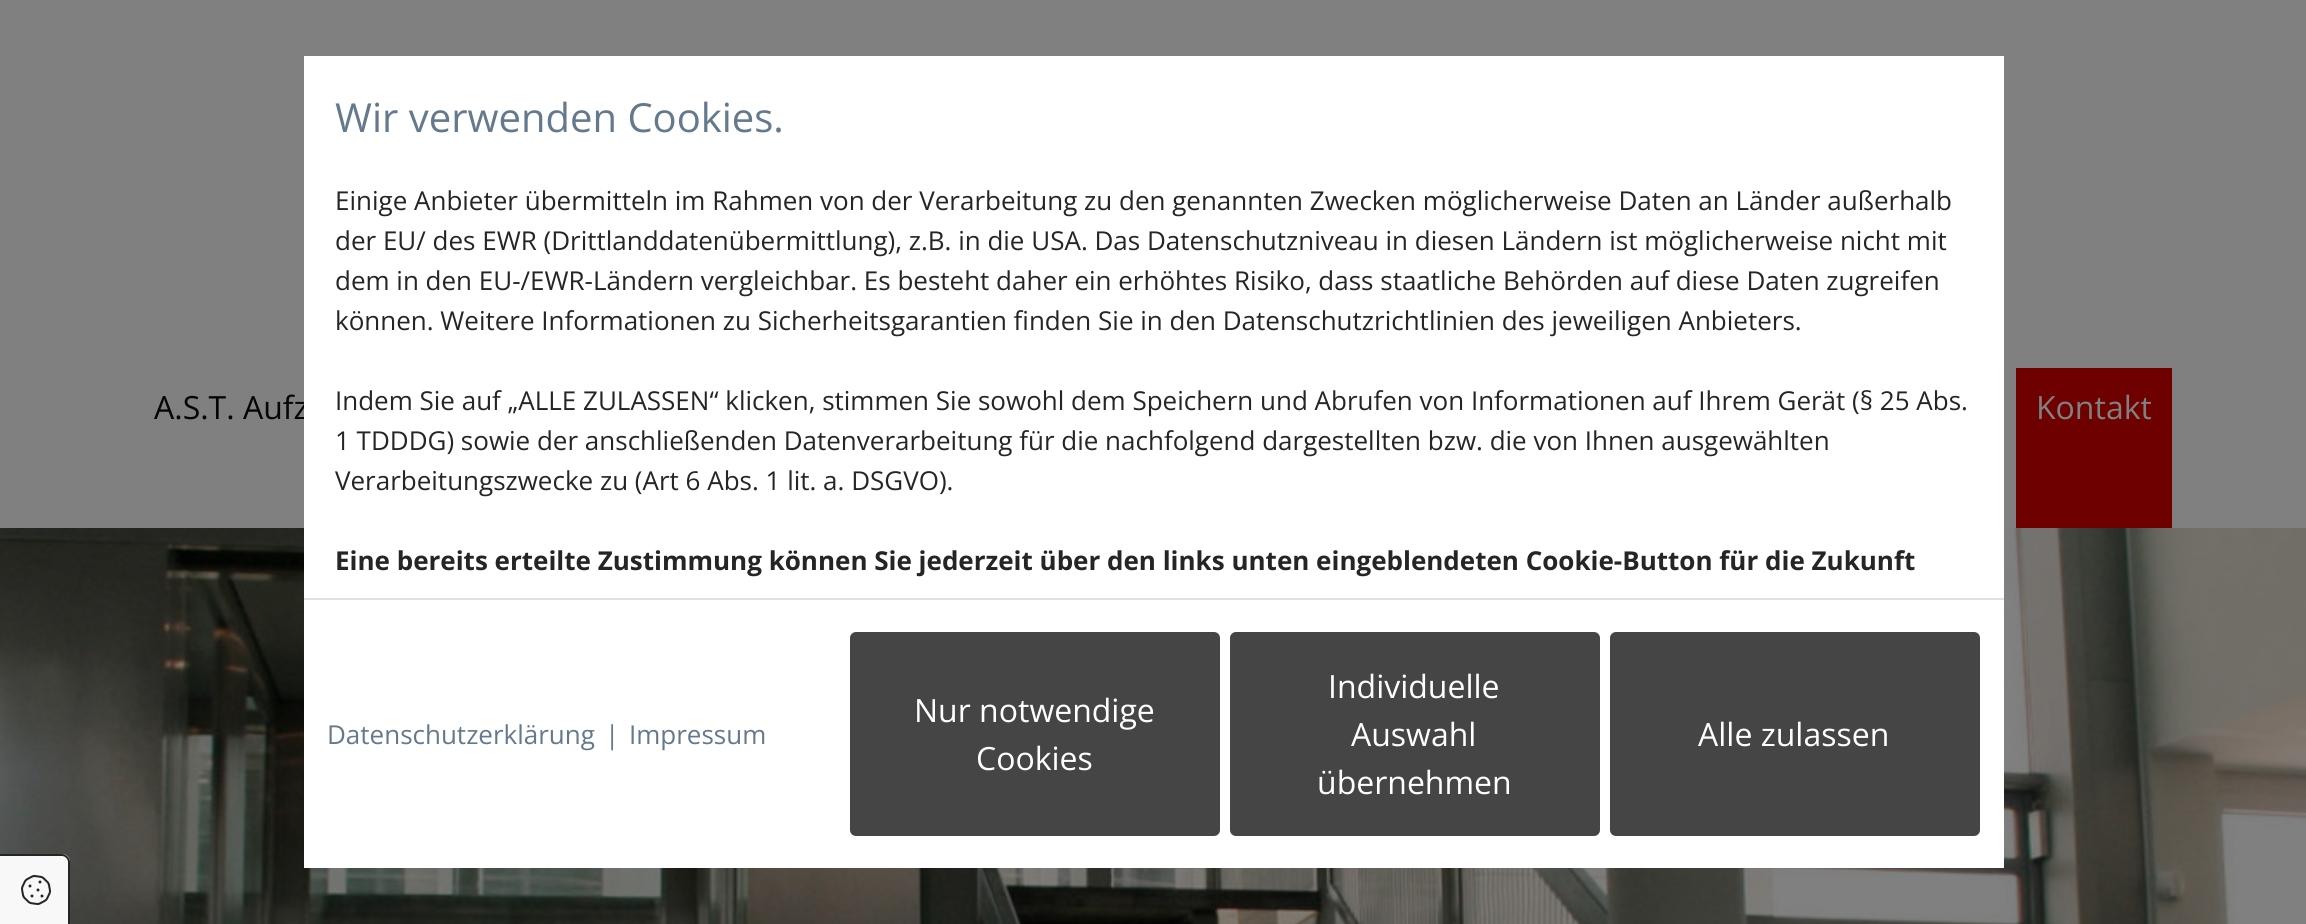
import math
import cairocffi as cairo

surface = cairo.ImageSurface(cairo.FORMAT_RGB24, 2306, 924)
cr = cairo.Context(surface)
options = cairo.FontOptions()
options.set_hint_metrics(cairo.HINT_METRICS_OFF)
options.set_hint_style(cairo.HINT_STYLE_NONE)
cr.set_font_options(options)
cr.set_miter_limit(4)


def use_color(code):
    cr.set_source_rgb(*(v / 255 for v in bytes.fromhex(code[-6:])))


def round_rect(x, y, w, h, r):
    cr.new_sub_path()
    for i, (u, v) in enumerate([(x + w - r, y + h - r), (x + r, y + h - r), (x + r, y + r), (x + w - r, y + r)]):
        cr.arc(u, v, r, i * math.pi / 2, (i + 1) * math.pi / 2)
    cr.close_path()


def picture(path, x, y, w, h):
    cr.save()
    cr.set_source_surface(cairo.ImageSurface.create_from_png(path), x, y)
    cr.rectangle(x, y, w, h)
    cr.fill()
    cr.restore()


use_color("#808080")
cr.paint()
cr.select_font_face("Open Sans")
cr.set_font_size(32)
use_color("#050507")
cr.move_to(154, 419)
cr.show_text("A.S.T. Aufz")
picture("img1.png", 0, 528, 2306, 396)
use_color("#ffffff")
cr.rectangle(304, 56, 1700, 812)
cr.fill()
cr.set_font_size(40)
use_color("#64798c")
cr.move_to(335, 132)
cr.show_text("Wir verwenden Cookies.")
cr.set_font_size(26)
use_color("#252525")
cr.move_to(335, 210)
cr.show_text("Einige Anbieter übermitteln im Rahmen von der Verarbeitung zu den genannten Zwecken möglicherweise Daten an Länder außerhalb")
cr.move_to(335, 250)
cr.show_text("der EU/ des EWR (Drittlanddatenübermittlung), z.B. in die USA. Das Datenschutzniveau in diesen Ländern ist möglicherweise nicht mit")
cr.move_to(335, 290)
cr.show_text("dem in den EU-/EWR-Ländern vergleichbar. Es besteht daher ein erhöhtes Risiko, dass staatliche Behörden auf diese Daten zugreifen")
cr.move_to(335, 330)
cr.show_text("können. Weitere Informationen zu Sicherheitsgarantien finden Sie in den Datenschutzrichtlinien des jeweiligen Anbieters.")
cr.move_to(335, 410)
cr.show_text("Indem Sie auf „ALLE ZULASSEN“ klicken, stimmen Sie sowohl dem Speichern und Abrufen von Informationen auf Ihrem Gerät (§ 25 Abs.")
cr.move_to(335, 450)
cr.show_text("1 TDDDG) sowie der anschließenden Datenverarbeitung für die nachfolgend dargestellten bzw. die von Ihnen ausgewählten")
cr.move_to(335, 490)
cr.show_text("Verarbeitungszwecke zu (Art 6 Abs. 1 lit. a. DSGVO).")
cr.select_font_face("Open Sans", cairo.FONT_SLANT_NORMAL, cairo.FONT_WEIGHT_BOLD)
cr.move_to(335, 570)
cr.show_text("Eine bereits erteilte Zustimmung können Sie jederzeit über den links unten eingeblendeten Cookie-Button für die Zukunft")
use_color("#dee2e6")
cr.rectangle(304, 598, 1700, 2)
cr.fill()
cr.select_font_face("Open Sans")
use_color("#64798c")
cr.move_to(327, 744)
cr.show_text("Datenschutzerklärung")
cr.move_to(605, 744)
cr.show_text("|")
cr.move_to(629, 744)
cr.show_text("Impressum")
use_color("#454545")
round_rect(850, 632, 370, 204, 6)
cr.fill()
cr.set_font_size(32)
use_color("#ffffff")
cr.move_to(914, 722)
cr.show_text("Nur notwendige")
cr.move_to(976, 770)
cr.show_text("Cookies")
use_color("#454545")
round_rect(1230, 632, 370, 204, 6)
cr.fill()
use_color("#ffffff")
cr.move_to(1328, 698)
cr.show_text("Individuelle")
cr.move_to(1351, 746)
cr.show_text("Auswahl")
cr.move_to(1317, 794)
cr.show_text("übernehmen")
use_color("#454545")
round_rect(1610, 632, 370, 204, 6)
cr.fill()
use_color("#ffffff")
cr.move_to(1698, 746)
cr.show_text("Alle zulassen")
use_color("#6e0000")
cr.rectangle(2016, 368, 156, 160)
cr.fill()
use_color("#808080")
cr.move_to(2036, 419)
cr.show_text("Kontakt")
use_color("#f8f8f8")
cr.new_path()
cr.move_to(0, 854)
cr.line_to(62, 854)
cr.curve_to(66.5, 854, 70, 857.5, 70, 862)
cr.line_to(70, 924)
cr.line_to(0, 924)
cr.close_path()
cr.fill()
use_color("#252525")
cr.set_fill_rule(cairo.FILL_RULE_EVEN_ODD)
cr.new_path()
cr.move_to(0, 854)
cr.line_to(62, 854)
cr.curve_to(66, 854, 70, 858, 70, 862)
cr.line_to(70, 924)
cr.line_to(0, 924)
cr.close_path()
cr.move_to(0, 856)
cr.line_to(62, 856)
cr.curve_to(65, 856, 68, 859, 68, 862)
cr.line_to(68, 924)
cr.line_to(0, 924)
cr.close_path()
cr.fill()
picture("img2.png", 21, 875, 30, 30)
surface.write_to_png("result.png")
